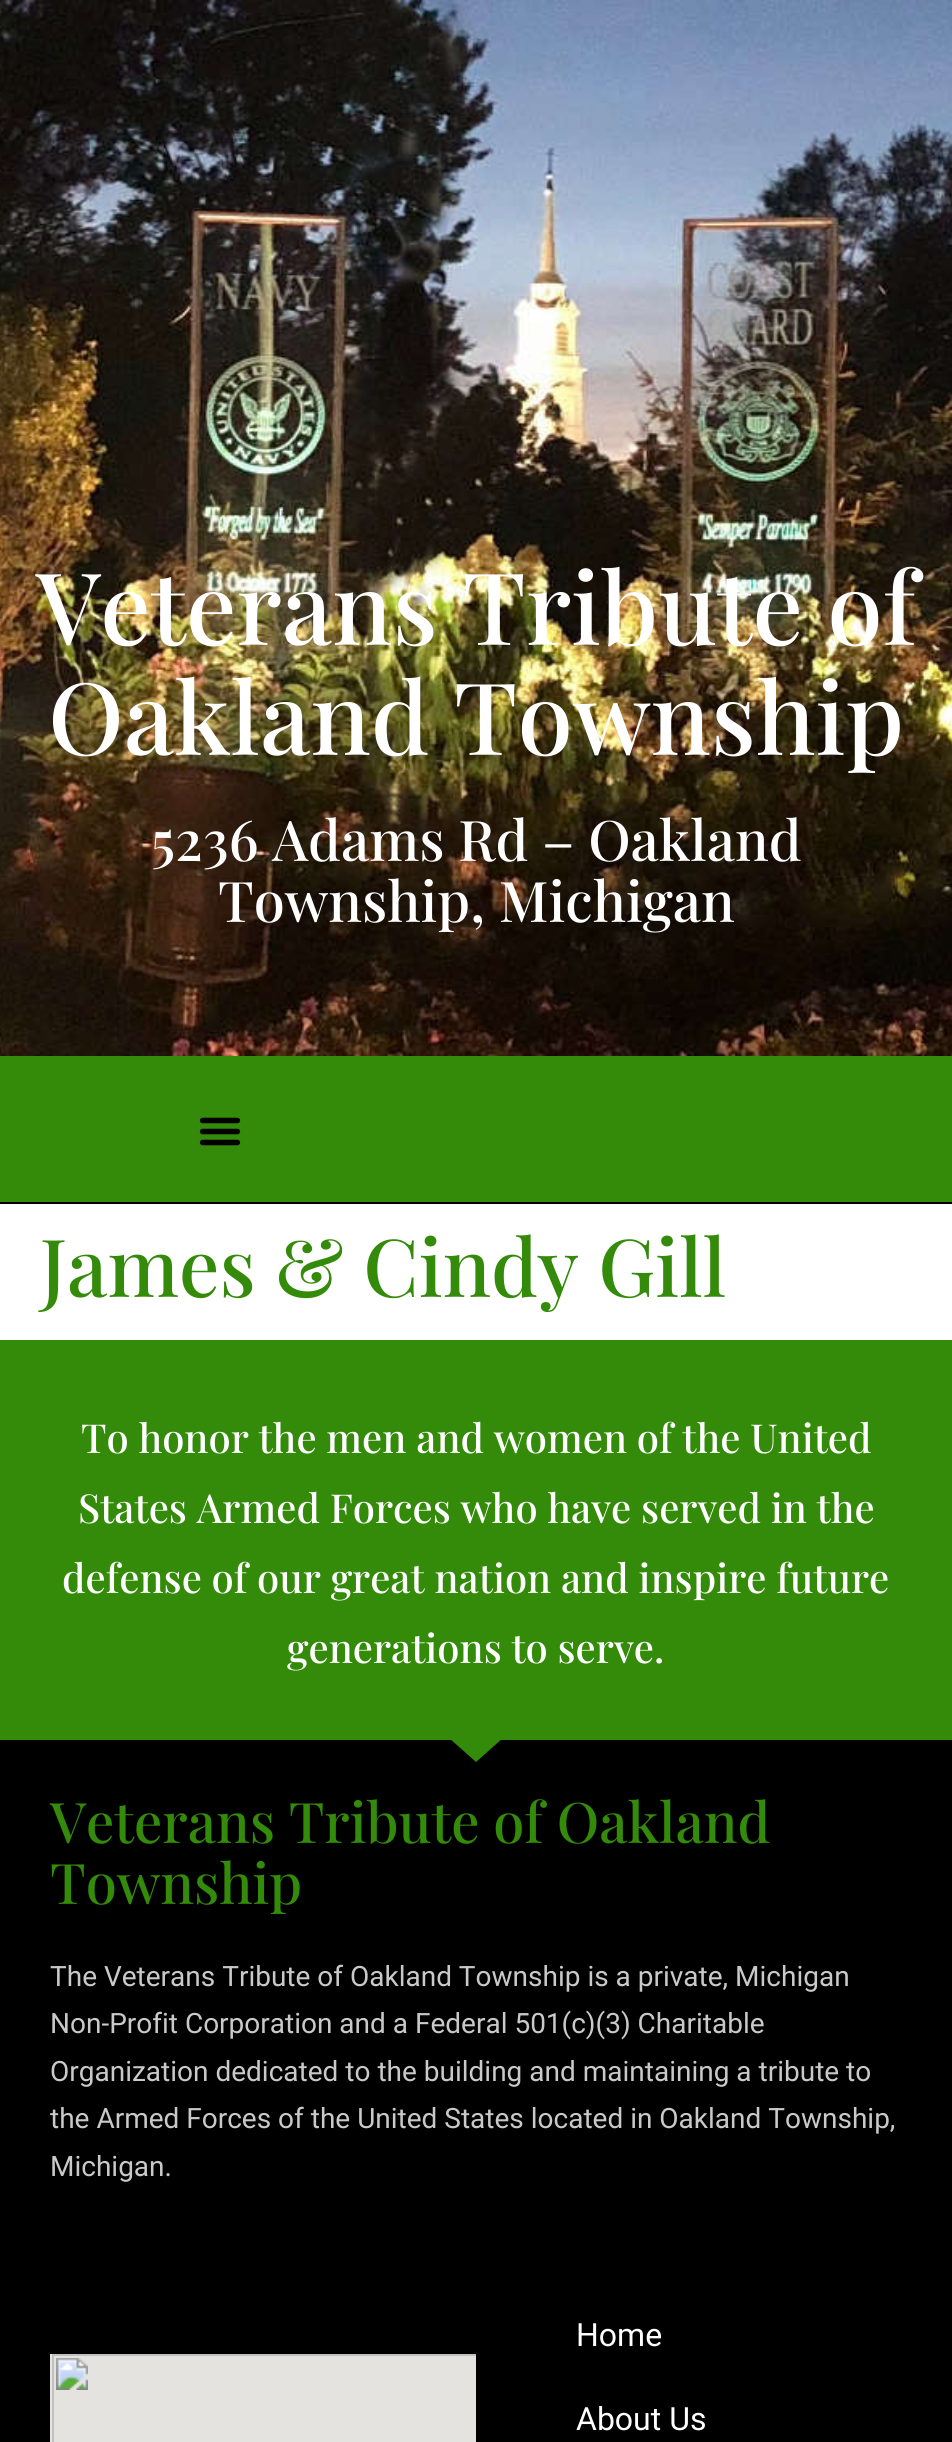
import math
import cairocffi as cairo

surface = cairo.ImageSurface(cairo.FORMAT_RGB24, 952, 2442)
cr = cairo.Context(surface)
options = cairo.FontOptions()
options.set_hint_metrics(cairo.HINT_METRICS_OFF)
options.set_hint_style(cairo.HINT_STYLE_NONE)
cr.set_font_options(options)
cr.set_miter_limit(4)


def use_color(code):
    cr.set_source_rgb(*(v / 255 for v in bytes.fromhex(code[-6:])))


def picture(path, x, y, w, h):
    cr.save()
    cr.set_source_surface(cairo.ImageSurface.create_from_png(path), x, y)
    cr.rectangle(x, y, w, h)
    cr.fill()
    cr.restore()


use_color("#ffffff")
cr.paint()
picture("img1.png", 0, 0, 952, 1056)
cr.select_font_face("Playfair Display Medium")
cr.set_font_size(100)
use_color("#ffffff")
cr.move_to(36, 645)
cr.show_text("Veterans Tribute of")
cr.move_to(48, 755)
cr.show_text("Oakland Township")
cr.set_font_size(56)
cr.move_to(151, 861)
cr.show_text("5236 Adams Rd – Oakland")
cr.move_to(218, 922)
cr.show_text("Township, Michigan")
use_color("#348a09")
cr.rectangle(0, 1056, 952, 146)
cr.fill()
use_color("#000000")
cr.rectangle(0, 1202, 952, 2)
cr.fill()
picture("img2.png", 199, 1117, 42, 29)
cr.set_font_size(80)
use_color("#348a09")
cr.move_to(40, 1297)
cr.show_text("James & Cindy Gill")
cr.rectangle(0, 1340, 952, 400)
cr.fill()
cr.set_font_size(40)
use_color("#ffffff")
cr.move_to(81, 1453)
cr.show_text("To honor the men and women of the United")
cr.move_to(78, 1523)
cr.show_text("States Armed Forces who have served in the")
cr.move_to(62, 1593)
cr.show_text("defense of our great nation and inspire future")
cr.move_to(287, 1663)
cr.show_text("generations to serve.")
use_color("#000000")
cr.rectangle(0, 1740, 952, 702)
cr.fill()
use_color("#348a09")
cr.new_path()
cr.move_to(476, 1762)
cr.line_to(449, 1738)
cr.line_to(503, 1738)
cr.close_path()
cr.fill()
cr.set_font_size(56)
cr.move_to(50, 1843)
cr.show_text("Veterans Tribute of Oakland")
cr.move_to(50, 1904)
cr.show_text("Township")
cr.select_font_face("Roboto")
cr.set_font_size(28)
use_color("#c9c9c9")
cr.move_to(50, 1986)
cr.show_text("The Veterans Tribute of Oakland Township is a private, Michigan")
cr.move_to(50, 2033)
cr.show_text("Non-Profit Corporation and a Federal 501(c)(3) Charitable")
cr.move_to(50, 2081)
cr.show_text("Organization dedicated to the building and maintaining a tribute to")
cr.move_to(50, 2128)
cr.show_text("the Armed Forces of the United States located in Oakland Township,")
cr.move_to(50, 2176)
cr.show_text("Michigan.")
picture("img3.png", 50, 2354, 426, 88)
cr.set_font_size(32)
use_color("#ffffff")
cr.move_to(576, 2346)
cr.show_text("Home")
cr.move_to(576, 2430)
cr.show_text("About Us")
surface.write_to_png("result.png")
